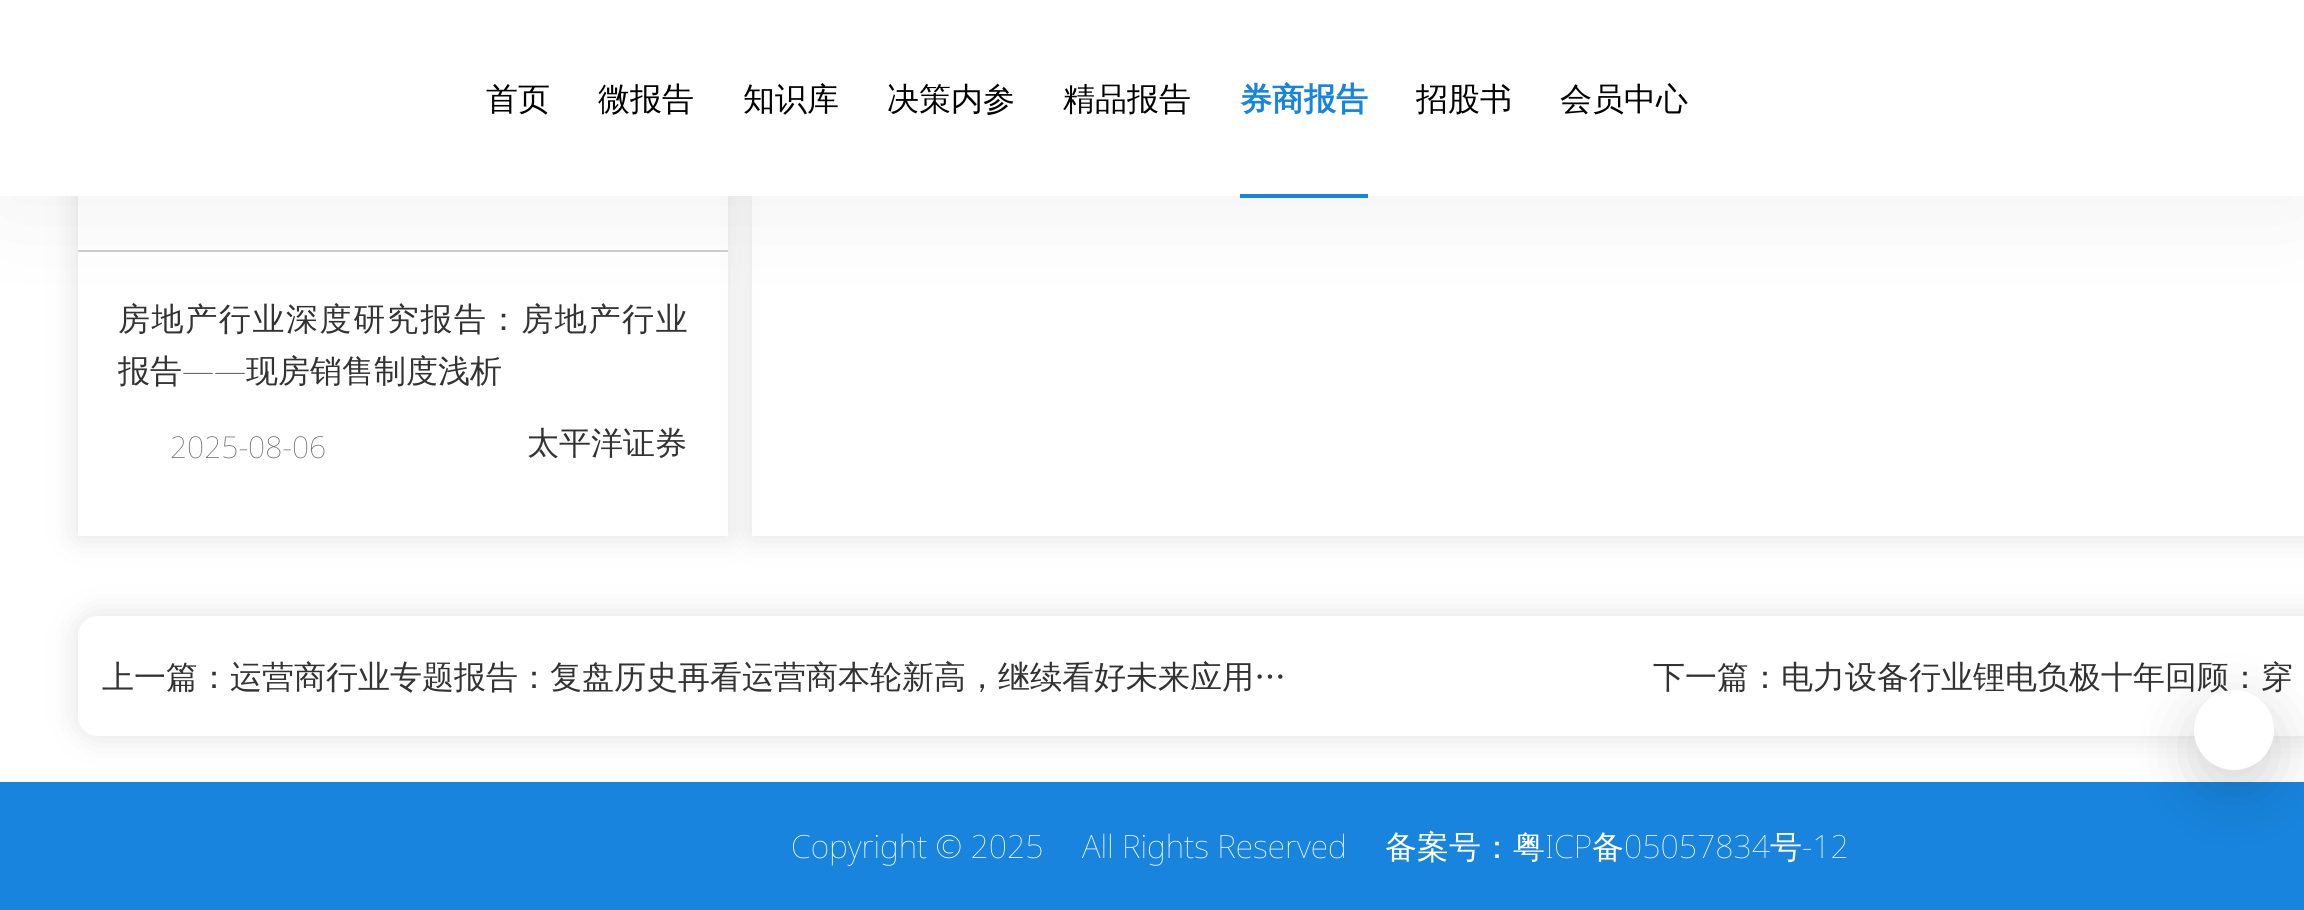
import math
import cairocffi as cairo

surface = cairo.ImageSurface(cairo.FORMAT_RGB24, 2304, 910)
cr = cairo.Context(surface)
options = cairo.FontOptions()
options.set_hint_metrics(cairo.HINT_METRICS_OFF)
options.set_hint_style(cairo.HINT_STYLE_NONE)
cr.set_font_options(options)
cr.set_miter_limit(4)


def use_color(code):
    cr.set_source_rgb(*(v / 255 for v in bytes.fromhex(code[-6:])))


def spaced_text(x, y, s, letter, word):
    cr.move_to(x, y)
    for ch in s:
        cr.show_text(ch)
        cr.rel_move_to(letter + word * (ch == ' '), 0)


def round_rect(x, y, w, h, r):
    cr.new_sub_path()
    for i, (u, v) in enumerate([(x + w - r, y + h - r), (x + r, y + h - r), (x + r, y + r), (x + w - r, y + r)]):
        cr.arc(u, v, r, i * math.pi / 2, (i + 1) * math.pi / 2)
    cr.close_path()


def shadow(x, y, w, h, r, blur, alpha):
    cr.push_group_with_content(cairo.CONTENT_ALPHA)
    cr.set_operator(cairo.OPERATOR_SOURCE)
    for i in range(15, -16, -2):
        e = blur * i / 6
        if min(w, h) + 2 * e > 0:
            cr.set_source_rgba(0, 0, 0, alpha * math.erfc((i - 1) / 8.5) / 2)
            round_rect(x - e, y - e, w + 2 * e, h + 2 * e, max(0, min(r + e + blur * .6, min(w, h) / 2 + e)))
            cr.fill()
    cr.mask(cr.pop_group())


use_color("#ffffff")
cr.paint()
cr.save()
cr.set_fill_rule(cairo.FILL_RULE_EVEN_ODD)
cr.new_path()
cr.move_to(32, 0)
cr.line_to(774, 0)
cr.line_to(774, 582)
cr.line_to(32, 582)
cr.close_path()
cr.move_to(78, -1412)
cr.line_to(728, -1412)
cr.line_to(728, 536)
cr.line_to(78, 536)
cr.close_path()
cr.clip()
use_color("#e1e1e1")
shadow(78, -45, 650, 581, 0, 15, 1)
cr.restore()
use_color("#cfcfcf")
cr.rectangle(78, 250, 650, 2)
cr.fill()
use_color("#000000")
shadow(0, 0, 2304, 196, 0, 60, 0.07)
cr.save()
cr.set_fill_rule(cairo.FILL_RULE_EVEN_ODD)
cr.new_path()
cr.move_to(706, 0)
cr.line_to(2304, 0)
cr.line_to(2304, 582)
cr.line_to(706, 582)
cr.close_path()
cr.move_to(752, -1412)
cr.line_to(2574, -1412)
cr.line_to(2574, 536)
cr.line_to(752, 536)
cr.close_path()
cr.clip()
use_color("#e1e1e1")
shadow(752, -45, 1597, 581, 0, 15, 1)
cr.restore()
use_color("#ffffff")
cr.rectangle(0, 0, 2304, 196)
cr.fill()
cr.select_font_face("WenQuanYi Zen Hei Medium")
cr.set_font_size(32)
use_color("#000000")
cr.move_to(486, 110)
cr.show_text("首页")
cr.move_to(598, 110)
cr.show_text("微报告")
cr.move_to(743, 110)
cr.show_text("知识库")
cr.move_to(887, 110)
cr.show_text("决策内参")
cr.move_to(1063, 110)
cr.show_text("精品报告")
cr.select_font_face("WenQuanYi Zen Hei", cairo.FONT_SLANT_NORMAL, cairo.FONT_WEIGHT_BOLD)
use_color("#1884dd")
cr.move_to(1240, 110)
cr.show_text("券商报告")
cr.rectangle(1240, 194, 128, 4)
cr.fill()
cr.select_font_face("WenQuanYi Zen Hei Medium")
use_color("#000000")
cr.move_to(1416, 110)
cr.show_text("招股书")
cr.move_to(1560, 110)
cr.show_text("会员中心")
use_color("#333333")
spaced_text(118, 330, "房地产行业深度研究报告：房地产行业", 1.6, 0)
cr.move_to(118, 382)
cr.show_text("报告")
cr.select_font_face("Noto Sans Thin")
cr.move_to(182, 382)
cr.show_text("——")
cr.select_font_face("WenQuanYi Zen Hei Medium")
cr.move_to(246, 382)
cr.show_text("现房销售制度浅析")
cr.select_font_face("Noto Sans Thin")
cr.set_font_size(30)
use_color("#666666")
cr.move_to(170, 458)
cr.show_text("2025-08-06")
cr.select_font_face("WenQuanYi Zen Hei Medium")
cr.set_font_size(32)
use_color("#333333")
cr.move_to(527, 454)
cr.show_text("太平洋证券")
use_color("#e1e1e1")
shadow(78, 616, 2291, 120, 20, 15, 1)
use_color("#ffffff")
cr.new_path()
cr.move_to(98, 616)
cr.line_to(2304, 616)
cr.line_to(2304, 736)
cr.line_to(98, 736)
cr.curve_to(87, 736, 78, 727, 78, 716)
cr.line_to(78, 636)
cr.curve_to(78, 625, 87, 616, 98, 616)
cr.close_path()
cr.fill()
use_color("#333333")
cr.move_to(102, 688)
cr.show_text("上一篇：运营商行业专题报告：复盘历史再看运营商本轮新高，继续看好未来应用…")
cr.move_to(1653, 688)
cr.show_text("下一篇：电力设备行业锂电负极十年回顾：穿")
use_color("#1884dd")
cr.rectangle(0, 782, 2304, 128)
cr.fill()
cr.select_font_face("Noto Sans Thin")
use_color("#ffffff")
cr.move_to(791, 858)
cr.show_text("Copyright © 2025")
cr.move_to(1082, 858)
cr.show_text("All Rights Reserved")
cr.select_font_face("WenQuanYi Zen Hei Medium")
cr.move_to(1385, 858)
cr.show_text("备案号：粤")
cr.select_font_face("Noto Sans Thin")
cr.move_to(1545, 858)
cr.show_text("ICP")
cr.select_font_face("WenQuanYi Zen Hei Medium")
cr.move_to(1592, 858)
cr.show_text("备")
cr.select_font_face("Noto Sans Thin")
cr.move_to(1624, 858)
cr.show_text("05057834")
cr.select_font_face("WenQuanYi Zen Hei Medium")
cr.move_to(1770, 858)
cr.show_text("号")
cr.select_font_face("Noto Sans Thin")
cr.move_to(1802, 858)
cr.show_text("-12")
use_color("#000000")
shadow(2192, 708, 84, 84, 42, 30, 0.15)
use_color("#ffffff")
cr.arc(2234, 730, 40, 0, 2 * math.pi)
cr.fill()
surface.write_to_png("result.png")
